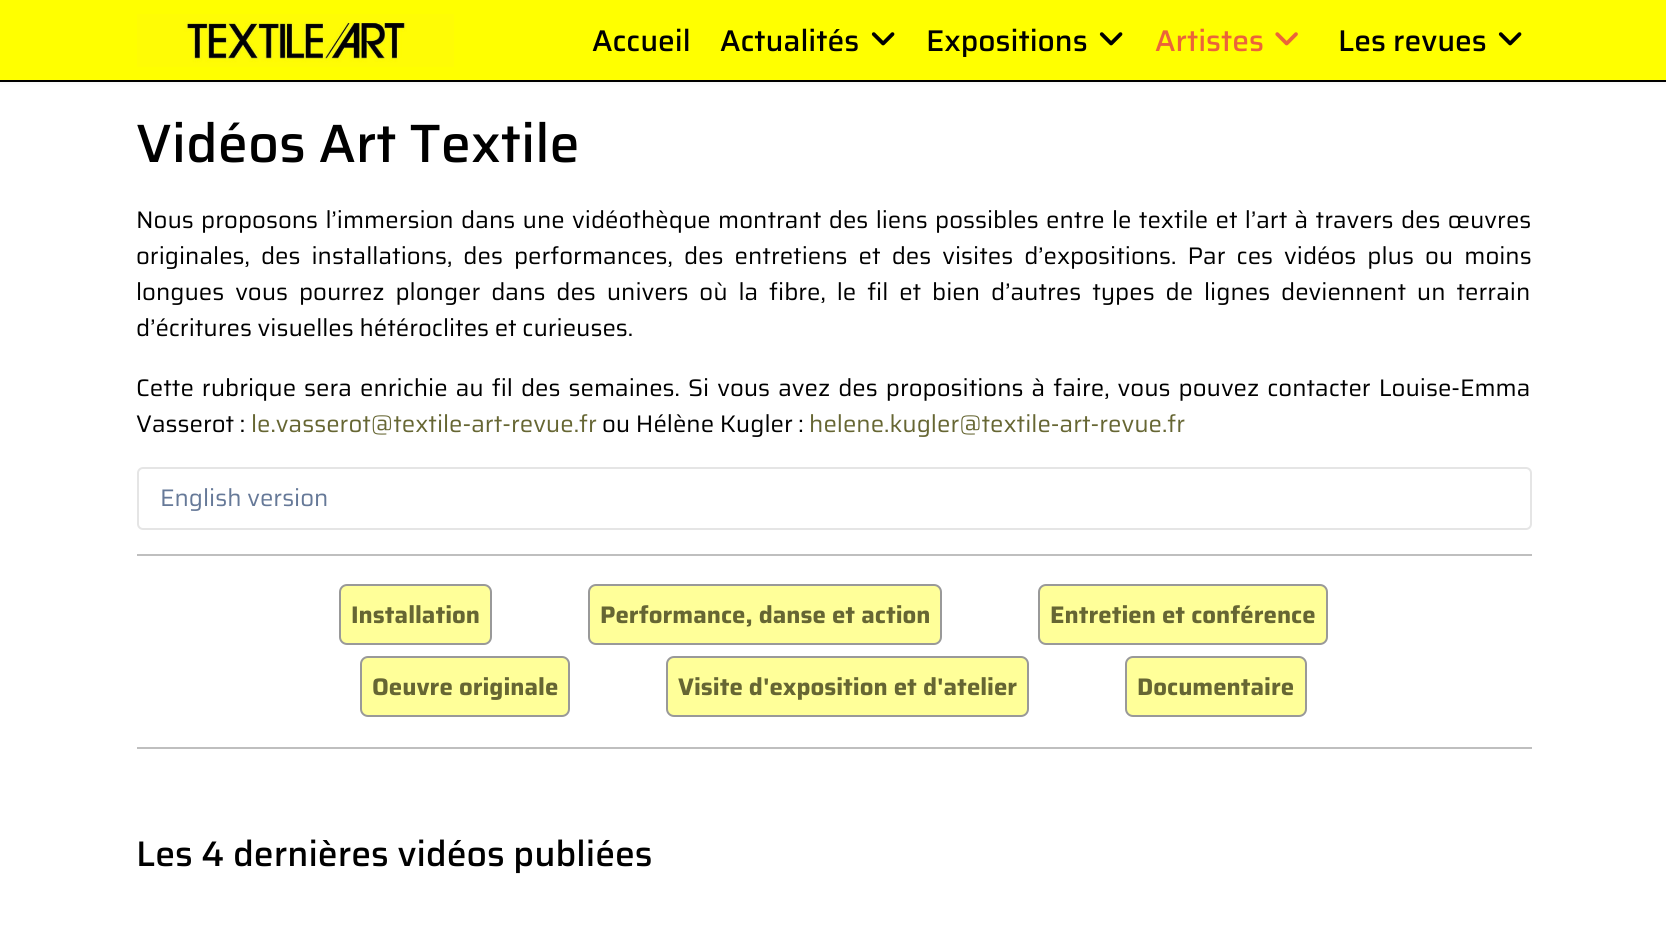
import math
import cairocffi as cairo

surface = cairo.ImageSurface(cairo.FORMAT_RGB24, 1666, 929)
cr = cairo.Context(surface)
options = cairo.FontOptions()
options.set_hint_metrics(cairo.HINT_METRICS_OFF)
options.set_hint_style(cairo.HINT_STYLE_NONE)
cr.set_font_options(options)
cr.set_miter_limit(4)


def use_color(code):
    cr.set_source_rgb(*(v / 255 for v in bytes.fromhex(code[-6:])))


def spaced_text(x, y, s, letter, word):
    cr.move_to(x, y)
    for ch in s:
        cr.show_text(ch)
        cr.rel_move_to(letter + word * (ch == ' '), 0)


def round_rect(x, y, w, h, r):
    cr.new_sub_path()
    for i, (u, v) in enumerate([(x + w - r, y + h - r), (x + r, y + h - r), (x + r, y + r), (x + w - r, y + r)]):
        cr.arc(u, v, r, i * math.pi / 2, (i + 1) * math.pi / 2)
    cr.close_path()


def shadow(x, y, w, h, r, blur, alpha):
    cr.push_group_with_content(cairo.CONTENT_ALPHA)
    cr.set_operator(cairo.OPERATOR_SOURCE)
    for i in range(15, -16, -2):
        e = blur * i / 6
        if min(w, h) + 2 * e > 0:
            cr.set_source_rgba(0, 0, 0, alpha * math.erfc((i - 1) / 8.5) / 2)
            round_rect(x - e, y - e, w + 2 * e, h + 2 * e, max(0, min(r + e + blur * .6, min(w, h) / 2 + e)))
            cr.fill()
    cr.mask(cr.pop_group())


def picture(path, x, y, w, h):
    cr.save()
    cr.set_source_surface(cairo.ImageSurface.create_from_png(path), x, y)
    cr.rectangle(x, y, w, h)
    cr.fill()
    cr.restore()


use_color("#ffffff")
cr.paint()
use_color("#000000")
shadow(0, 0, 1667, 81, 0, 3, 0.1)
use_color("#ffff00")
cr.rectangle(0, 0, 1666, 80)
cr.fill()
use_color("#000000")
cr.rectangle(0, 80, 1666, 2)
cr.fill()
picture("img1.png", 137, 14, 317, 53)
cr.select_font_face("Saira Medium")
cr.set_font_size(30)
cr.move_to(592, 51)
cr.show_text("Accueil")
cr.move_to(720, 51)
cr.show_text("Actualités")
picture("img2.png", 871, 32, 24, 14)
cr.move_to(926, 51)
cr.show_text("Expositions")
picture("img2.png", 1099, 32, 24, 14)
use_color("#eb643a")
cr.move_to(1155, 51)
cr.show_text("Artistes")
picture("img3.png", 1275, 32, 23, 14)
use_color("#000000")
cr.move_to(1338, 51)
cr.show_text("Les revues")
picture("img2.png", 1498, 32, 24, 14)
cr.set_font_size(54)
cr.move_to(136, 162)
cr.show_text("Vidéos Art Textile")
cr.select_font_face("Saira")
cr.set_font_size(24)
spaced_text(136, 228, "Nous proposons l’immersion dans une vidéothèque montrant des liens possibles entre le textile et l’art à travers des œuvres", 0, 1.7)
spaced_text(136, 264, "originales, des installations, des performances, des entretiens et des visites d’expositions. Par ces vidéos plus ou moins", 0, 5.4)
spaced_text(136, 300, "longues vous pourrez plonger dans des univers où la fibre, le fil et bien d’autres types de lignes deviennent un terrain", 0, 5.25)
cr.move_to(136, 336)
cr.show_text("d’écritures visuelles hétéroclites et curieuses.")
spaced_text(136, 396, "Cette rubrique sera enrichie au fil des semaines. Si vous avez des propositions à faire, vous pouvez contacter Louise-Emma", 0, 2.4)
cr.move_to(136, 432)
cr.show_text("Vasserot :")
use_color("#666633")
cr.move_to(251, 432)
cr.show_text("le.vasserot@textile-art-revue.fr")
use_color("#000000")
cr.move_to(602, 432)
cr.show_text("ou Hélène Kugler :")
use_color("#666633")
cr.move_to(809, 432)
cr.show_text("helene.kugler@textile-art-revue.fr")
round_rect(138, 468, 1393, 61, 5)
use_color("#e5e5e5")
cr.stroke()
use_color("#667998")
cr.move_to(160, 506)
cr.show_text("English version")
use_color("#bfbfbf")
cr.rectangle(137, 554, 1395, 2)
cr.fill()
use_color("#ffff99")
round_rect(340, 585, 151, 59, 7)
cr.fill_preserve()
use_color("#999999")
cr.stroke()
cr.select_font_face("Saira", cairo.FONT_SLANT_NORMAL, cairo.FONT_WEIGHT_BOLD)
use_color("#666633")
cr.move_to(351, 623)
cr.show_text("Installation")
use_color("#ffff99")
round_rect(589, 585, 352, 59, 7)
cr.fill_preserve()
use_color("#999999")
cr.stroke()
use_color("#666633")
cr.move_to(600, 623)
cr.show_text("Performance, danse et action")
use_color("#ffff99")
round_rect(1039, 585, 288, 59, 7)
cr.fill_preserve()
use_color("#999999")
cr.stroke()
use_color("#666633")
cr.move_to(1050, 623)
cr.show_text("Entretien et conférence")
use_color("#ffff99")
round_rect(361, 657, 208, 59, 7)
cr.fill_preserve()
use_color("#999999")
cr.stroke()
use_color("#666633")
cr.move_to(372, 695)
cr.show_text("Oeuvre originale")
use_color("#ffff99")
round_rect(667, 657, 361, 59, 7)
cr.fill_preserve()
use_color("#999999")
cr.stroke()
use_color("#666633")
cr.move_to(678, 695)
cr.show_text("Visite d'exposition et d'atelier")
use_color("#ffff99")
round_rect(1126, 657, 180, 59, 7)
cr.fill_preserve()
use_color("#999999")
cr.stroke()
use_color("#666633")
cr.move_to(1137, 695)
cr.show_text("Documentaire")
use_color("#bfbfbf")
cr.rectangle(137, 747, 1395, 2)
cr.fill()
cr.select_font_face("Saira Medium")
cr.set_font_size(35.6)
use_color("#000000")
cr.move_to(136, 866)
cr.show_text("Les 4 dernières vidéos publiées")
surface.write_to_png("result.png")
